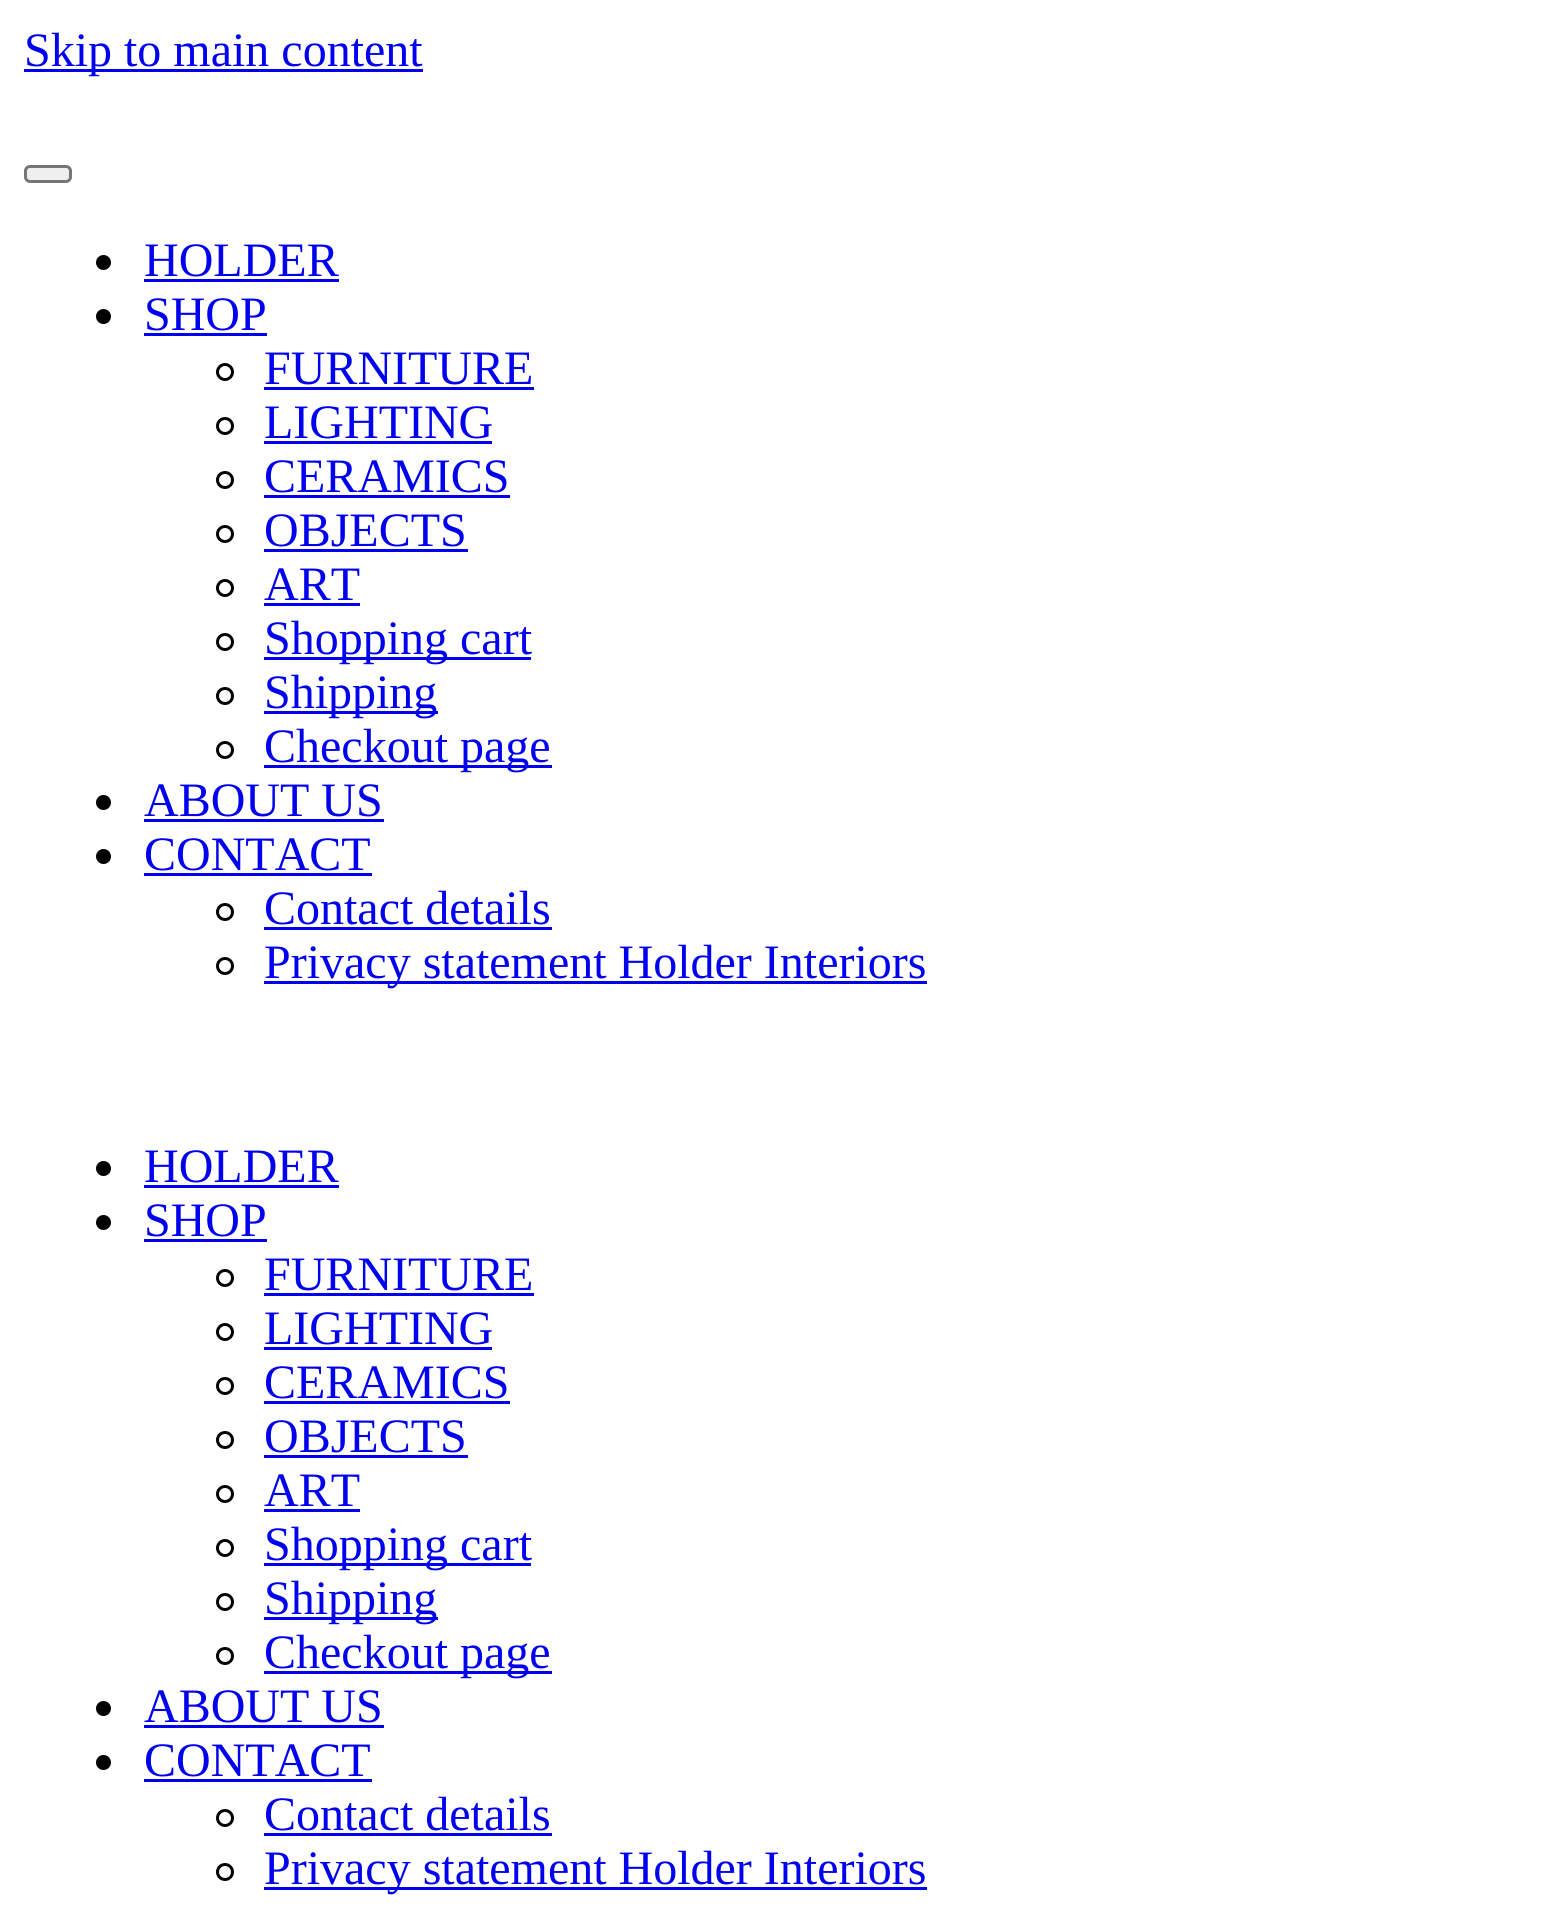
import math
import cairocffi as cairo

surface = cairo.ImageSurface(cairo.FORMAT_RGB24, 1541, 1917)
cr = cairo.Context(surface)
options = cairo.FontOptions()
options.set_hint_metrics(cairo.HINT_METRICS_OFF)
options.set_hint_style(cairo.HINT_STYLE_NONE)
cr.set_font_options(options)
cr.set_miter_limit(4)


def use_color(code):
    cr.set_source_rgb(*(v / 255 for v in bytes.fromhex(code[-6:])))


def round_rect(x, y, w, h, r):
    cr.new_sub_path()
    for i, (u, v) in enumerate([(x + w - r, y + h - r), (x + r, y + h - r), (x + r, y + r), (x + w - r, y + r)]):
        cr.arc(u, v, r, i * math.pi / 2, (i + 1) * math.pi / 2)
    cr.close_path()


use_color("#ffffff")
cr.paint()
use_color("#0000ee")
cr.rectangle(24, 69, 399, 3)
cr.fill()
cr.select_font_face("Liberation Serif")
cr.set_font_size(48)
cr.move_to(24, 66)
cr.show_text("Skip to main content")
use_color("#efefef")
round_rect(25.5, 166.5, 45, 15, 4.5)
cr.fill_preserve()
use_color("#767676")
cr.set_line_width(3)
cr.stroke()
use_color("#000000")
cr.arc(103.5, 262.5, 7.5, 0, 2 * math.pi)
cr.fill()
use_color("#0000ee")
cr.move_to(144, 276)
cr.show_text("HOLDER")
cr.rectangle(144, 279, 195, 3)
cr.fill()
use_color("#000000")
cr.arc(103.5, 316.5, 7.5, 0, 2 * math.pi)
cr.fill()
use_color("#0000ee")
cr.move_to(144, 330)
cr.show_text("SHOP")
cr.rectangle(144, 333, 123, 3)
cr.fill()
cr.arc(225, 372, 7.5, 0, 2 * math.pi)
use_color("#000000")
cr.stroke()
use_color("#0000ee")
cr.move_to(264, 384)
cr.show_text("FURNITURE")
cr.rectangle(264, 387, 270, 3)
cr.fill()
cr.arc(225, 426, 7.5, 0, 2 * math.pi)
use_color("#000000")
cr.stroke()
use_color("#0000ee")
cr.move_to(264, 438)
cr.show_text("LIGHTING")
cr.rectangle(264, 441, 228, 3)
cr.fill()
cr.arc(225, 480, 7.5, 0, 2 * math.pi)
use_color("#000000")
cr.stroke()
use_color("#0000ee")
cr.move_to(264, 492)
cr.show_text("CERAMICS")
cr.rectangle(264, 495, 246, 3)
cr.fill()
cr.arc(225, 534, 7.5, 0, 2 * math.pi)
use_color("#000000")
cr.stroke()
use_color("#0000ee")
cr.move_to(264, 546)
cr.show_text("OBJECTS")
cr.rectangle(264, 549, 204, 3)
cr.fill()
cr.arc(225, 588, 7.5, 0, 2 * math.pi)
use_color("#000000")
cr.stroke()
use_color("#0000ee")
cr.move_to(264, 600)
cr.show_text("ART")
cr.rectangle(264, 603, 96, 3)
cr.fill()
cr.arc(225, 642, 7.5, 0, 2 * math.pi)
use_color("#000000")
cr.stroke()
use_color("#0000ee")
cr.rectangle(264, 657, 267, 3)
cr.fill()
cr.move_to(264, 654)
cr.show_text("Shopping cart")
cr.new_path()
cr.arc(225, 696, 7.5, 0, 2 * math.pi)
use_color("#000000")
cr.stroke()
use_color("#0000ee")
cr.rectangle(264, 711, 174, 3)
cr.fill()
cr.move_to(264, 708)
cr.show_text("Shipping")
cr.new_path()
cr.arc(225, 750, 7.5, 0, 2 * math.pi)
use_color("#000000")
cr.stroke()
use_color("#0000ee")
cr.rectangle(264, 765, 288, 3)
cr.fill()
cr.move_to(264, 762)
cr.show_text("Checkout page")
use_color("#000000")
cr.new_path()
cr.arc(103.5, 802.5, 7.5, 0, 2 * math.pi)
cr.fill()
use_color("#0000ee")
cr.move_to(144, 816)
cr.show_text("ABOUT US")
cr.rectangle(144, 819, 240, 3)
cr.fill()
use_color("#000000")
cr.arc(103.5, 856.5, 7.5, 0, 2 * math.pi)
cr.fill()
use_color("#0000ee")
cr.move_to(144, 870)
cr.show_text("CONTACT")
cr.rectangle(144, 873, 228, 3)
cr.fill()
cr.arc(225, 912, 7.5, 0, 2 * math.pi)
use_color("#000000")
cr.stroke()
use_color("#0000ee")
cr.move_to(264, 924)
cr.show_text("Contact details")
cr.rectangle(264, 927, 288, 3)
cr.fill()
cr.arc(225, 966, 7.5, 0, 2 * math.pi)
use_color("#000000")
cr.stroke()
use_color("#0000ee")
cr.rectangle(264, 981, 663, 3)
cr.fill()
cr.move_to(264, 978)
cr.show_text("Privacy statement Holder Interiors")
use_color("#000000")
cr.new_path()
cr.arc(103.5, 1168.5, 7.5, 0, 2 * math.pi)
cr.fill()
use_color("#0000ee")
cr.move_to(144, 1182)
cr.show_text("HOLDER")
cr.rectangle(144, 1185, 195, 3)
cr.fill()
use_color("#000000")
cr.arc(103.5, 1222.5, 7.5, 0, 2 * math.pi)
cr.fill()
use_color("#0000ee")
cr.move_to(144, 1236)
cr.show_text("SHOP")
cr.rectangle(144, 1239, 123, 3)
cr.fill()
cr.arc(225, 1278, 7.5, 0, 2 * math.pi)
use_color("#000000")
cr.stroke()
use_color("#0000ee")
cr.move_to(264, 1290)
cr.show_text("FURNITURE")
cr.rectangle(264, 1293, 270, 3)
cr.fill()
cr.arc(225, 1332, 7.5, 0, 2 * math.pi)
use_color("#000000")
cr.stroke()
use_color("#0000ee")
cr.move_to(264, 1344)
cr.show_text("LIGHTING")
cr.rectangle(264, 1347, 228, 3)
cr.fill()
cr.arc(225, 1386, 7.5, 0, 2 * math.pi)
use_color("#000000")
cr.stroke()
use_color("#0000ee")
cr.move_to(264, 1398)
cr.show_text("CERAMICS")
cr.rectangle(264, 1401, 246, 3)
cr.fill()
cr.arc(225, 1440, 7.5, 0, 2 * math.pi)
use_color("#000000")
cr.stroke()
use_color("#0000ee")
cr.move_to(264, 1452)
cr.show_text("OBJECTS")
cr.rectangle(264, 1455, 204, 3)
cr.fill()
cr.arc(225, 1494, 7.5, 0, 2 * math.pi)
use_color("#000000")
cr.stroke()
use_color("#0000ee")
cr.move_to(264, 1506)
cr.show_text("ART")
cr.rectangle(264, 1509, 96, 3)
cr.fill()
cr.arc(225, 1548, 7.5, 0, 2 * math.pi)
use_color("#000000")
cr.stroke()
use_color("#0000ee")
cr.rectangle(264, 1563, 267, 3)
cr.fill()
cr.move_to(264, 1560)
cr.show_text("Shopping cart")
cr.new_path()
cr.arc(225, 1602, 7.5, 0, 2 * math.pi)
use_color("#000000")
cr.stroke()
use_color("#0000ee")
cr.rectangle(264, 1617, 174, 3)
cr.fill()
cr.move_to(264, 1614)
cr.show_text("Shipping")
cr.new_path()
cr.arc(225, 1656, 7.5, 0, 2 * math.pi)
use_color("#000000")
cr.stroke()
use_color("#0000ee")
cr.rectangle(264, 1671, 288, 3)
cr.fill()
cr.move_to(264, 1668)
cr.show_text("Checkout page")
use_color("#000000")
cr.new_path()
cr.arc(103.5, 1708.5, 7.5, 0, 2 * math.pi)
cr.fill()
use_color("#0000ee")
cr.move_to(144, 1722)
cr.show_text("ABOUT US")
cr.rectangle(144, 1725, 240, 3)
cr.fill()
use_color("#000000")
cr.arc(103.5, 1762.5, 7.5, 0, 2 * math.pi)
cr.fill()
use_color("#0000ee")
cr.move_to(144, 1776)
cr.show_text("CONTACT")
cr.rectangle(144, 1779, 228, 3)
cr.fill()
cr.arc(225, 1818, 7.5, 0, 2 * math.pi)
use_color("#000000")
cr.stroke()
use_color("#0000ee")
cr.move_to(264, 1830)
cr.show_text("Contact details")
cr.rectangle(264, 1833, 288, 3)
cr.fill()
cr.arc(225, 1872, 7.5, 0, 2 * math.pi)
use_color("#000000")
cr.stroke()
use_color("#0000ee")
cr.rectangle(264, 1887, 663, 3)
cr.fill()
cr.move_to(264, 1884)
cr.show_text("Privacy statement Holder Interiors")
surface.write_to_png("result.png")
